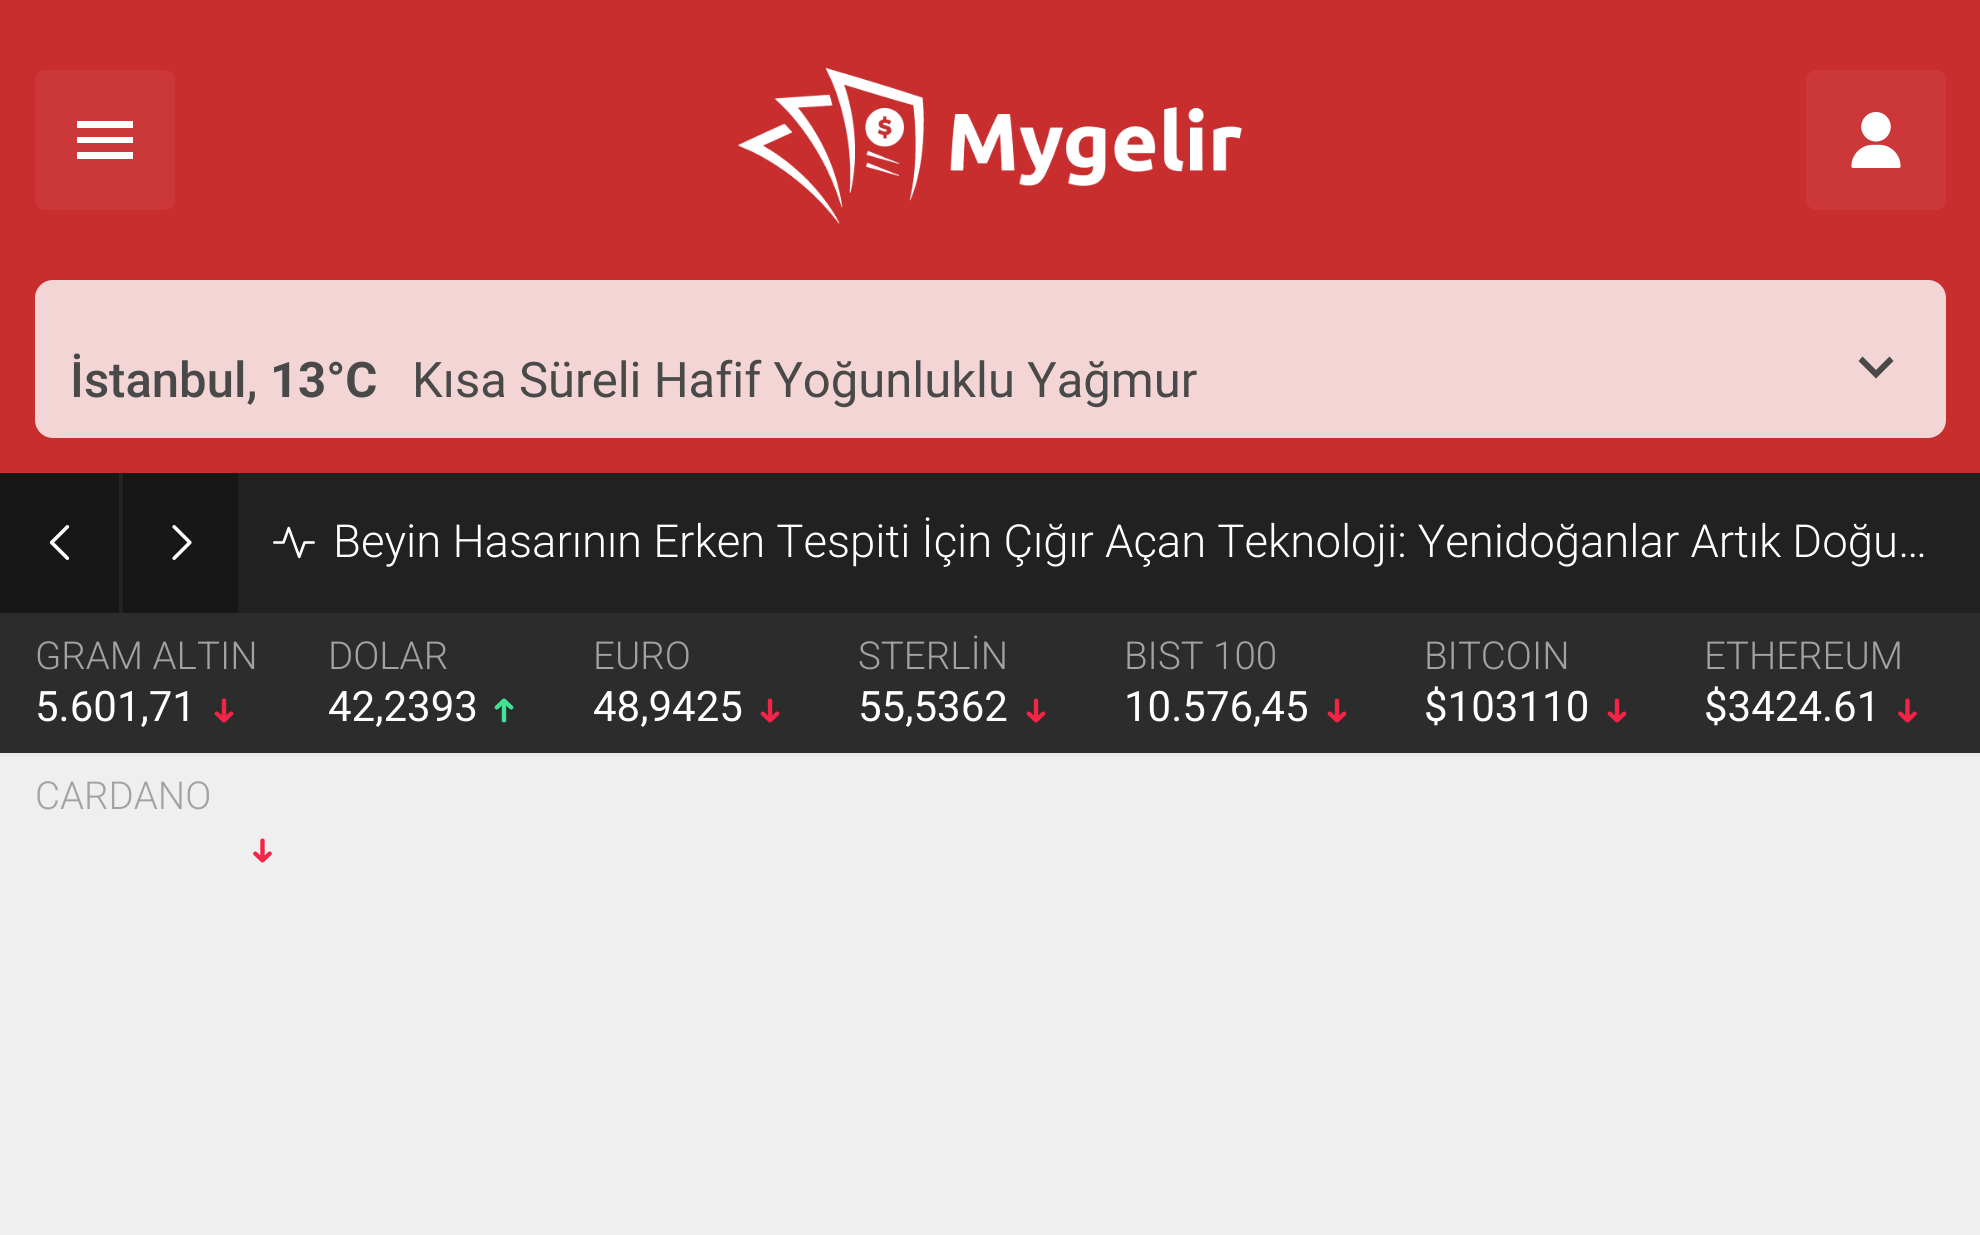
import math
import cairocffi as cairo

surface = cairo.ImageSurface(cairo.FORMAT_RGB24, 1980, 1235)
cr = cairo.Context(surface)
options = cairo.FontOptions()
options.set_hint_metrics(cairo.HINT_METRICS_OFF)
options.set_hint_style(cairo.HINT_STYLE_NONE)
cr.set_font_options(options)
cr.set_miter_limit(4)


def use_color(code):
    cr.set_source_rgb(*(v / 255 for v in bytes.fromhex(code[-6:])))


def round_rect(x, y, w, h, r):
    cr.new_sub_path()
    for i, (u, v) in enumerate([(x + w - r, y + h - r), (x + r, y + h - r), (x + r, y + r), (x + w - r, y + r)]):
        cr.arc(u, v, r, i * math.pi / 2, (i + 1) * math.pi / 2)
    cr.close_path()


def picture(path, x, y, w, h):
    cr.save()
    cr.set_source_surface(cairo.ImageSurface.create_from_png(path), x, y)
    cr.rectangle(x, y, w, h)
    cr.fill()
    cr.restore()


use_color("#efefef")
cr.paint()
use_color("#eaeaea")
cr.rectangle(0, 753, 1980, 4)
cr.fill()
use_color("#c92e2f")
cr.rectangle(0, 0, 1980, 473)
cr.fill()
use_color("#cc3839")
round_rect(35, 70, 140, 140, 11)
cr.fill()
use_color("#ffffff")
cr.new_path()
cr.move_to(77, 159)
cr.line_to(133, 159)
cr.line_to(133, 152)
cr.line_to(77, 152)
cr.close_path()
cr.move_to(77, 143)
cr.line_to(133, 143)
cr.line_to(133, 137)
cr.line_to(77, 137)
cr.close_path()
cr.move_to(77, 121)
cr.line_to(77, 128)
cr.line_to(133, 128)
cr.line_to(133, 121)
cr.close_path()
cr.fill()
picture("img1.png", 737, 67, 505, 158)
use_color("#cc3839")
round_rect(1806, 70, 140, 140, 11)
cr.fill()
picture("img2.png", 1851, 112, 50, 56)
use_color("#f4d5d5")
round_rect(35, 280, 1911, 158, 18)
cr.fill()
cr.select_font_face("Roboto Medium")
cr.set_font_size(49)
use_color("#494949")
cr.move_to(70, 397)
cr.show_text("İstanbul,")
cr.select_font_face("Roboto", cairo.FONT_SLANT_NORMAL, cairo.FONT_WEIGHT_BOLD)
cr.move_to(270, 397)
cr.show_text("13°C")
cr.select_font_face("Roboto")
cr.move_to(412, 397)
cr.show_text("Kısa Süreli Hafif Yoğunluklu Yağmur")
cr.new_path()
cr.move_to(1889.5, 356.5)
cr.line_to(1876, 370)
cr.line_to(1862.5, 356.5)
cr.line_to(1858.5, 361)
cr.line_to(1876, 378.5)
cr.line_to(1893.5, 361)
cr.close_path()
cr.fill()
use_color("#212121")
cr.rectangle(238, 473, 1742, 140)
cr.fill()
use_color("#171717")
cr.rectangle(0, 473, 238, 140)
cr.fill()
picture("img3.png", 49, 525, 21, 35)
use_color("#232323")
cr.rectangle(119, 473, 4, 140)
cr.fill()
picture("img4.png", 172, 525, 20, 35)
picture("img5.png", 273, 526, 42, 33)
cr.select_font_face("Roboto Light")
cr.set_font_size(45.5)
use_color("#ffffff")
cr.move_to(333, 557)
cr.show_text("Beyin Hasarının Erken Tespiti İçin Çığır Açan Teknoloji: Yenidoğanlar Artık Doğu…")
use_color("#2c2c2c")
cr.rectangle(0, 613, 1980, 140)
cr.fill()
cr.set_font_size(38.5)
use_color("#a2a2a2")
cr.move_to(35, 669)
cr.show_text("GRAM ALTIN")
cr.select_font_face("Roboto")
cr.set_font_size(42)
use_color("#ffffff")
cr.move_to(35, 721)
cr.show_text("5.601,71")
picture("img6.png", 214, 698, 20, 25)
cr.select_font_face("Roboto Light")
cr.set_font_size(38.5)
use_color("#a2a2a2")
cr.move_to(328, 669)
cr.show_text("DOLAR")
cr.select_font_face("Roboto")
cr.set_font_size(42)
use_color("#ffffff")
cr.move_to(328, 721)
cr.show_text("42,2393")
picture("img7.png", 494, 698, 20, 25)
cr.select_font_face("Roboto Light")
cr.set_font_size(38.5)
use_color("#a2a2a2")
cr.move_to(593, 669)
cr.show_text("EURO")
cr.select_font_face("Roboto")
cr.set_font_size(42)
use_color("#ffffff")
cr.move_to(593, 721)
cr.show_text("48,9425")
picture("img6.png", 760, 698, 20, 25)
cr.select_font_face("Roboto Light")
cr.set_font_size(38.5)
use_color("#a2a2a2")
cr.move_to(858, 669)
cr.show_text("STERLİN")
cr.select_font_face("Roboto")
cr.set_font_size(42)
use_color("#ffffff")
cr.move_to(858, 721)
cr.show_text("55,5362")
picture("img6.png", 1026, 698, 20, 25)
cr.select_font_face("Roboto Light")
cr.set_font_size(38.5)
use_color("#a2a2a2")
cr.move_to(1124, 669)
cr.show_text("BIST 100")
cr.select_font_face("Roboto")
cr.set_font_size(42)
use_color("#ffffff")
cr.move_to(1124, 721)
cr.show_text("10.576,45")
picture("img6.png", 1327, 698, 20, 25)
cr.select_font_face("Roboto Light")
cr.set_font_size(38.5)
use_color("#a2a2a2")
cr.move_to(1424, 669)
cr.show_text("BITCOIN")
cr.select_font_face("Roboto")
cr.set_font_size(42)
use_color("#ffffff")
cr.move_to(1424, 721)
cr.show_text("$103110")
picture("img6.png", 1607, 698, 20, 25)
cr.select_font_face("Roboto Light")
cr.set_font_size(38.5)
use_color("#a2a2a2")
cr.move_to(1704, 669)
cr.show_text("ETHEREUM")
cr.select_font_face("Roboto")
cr.set_font_size(42)
use_color("#ffffff")
cr.move_to(1704, 721)
cr.show_text("$3424.61")
picture("img8.png", 1898, 698, 19, 25)
cr.select_font_face("Roboto Light")
cr.set_font_size(38.5)
use_color("#a2a2a2")
cr.move_to(35, 809)
cr.show_text("CARDANO")
picture("img9.png", 253, 838, 19, 25)
surface.write_to_png("result.png")
